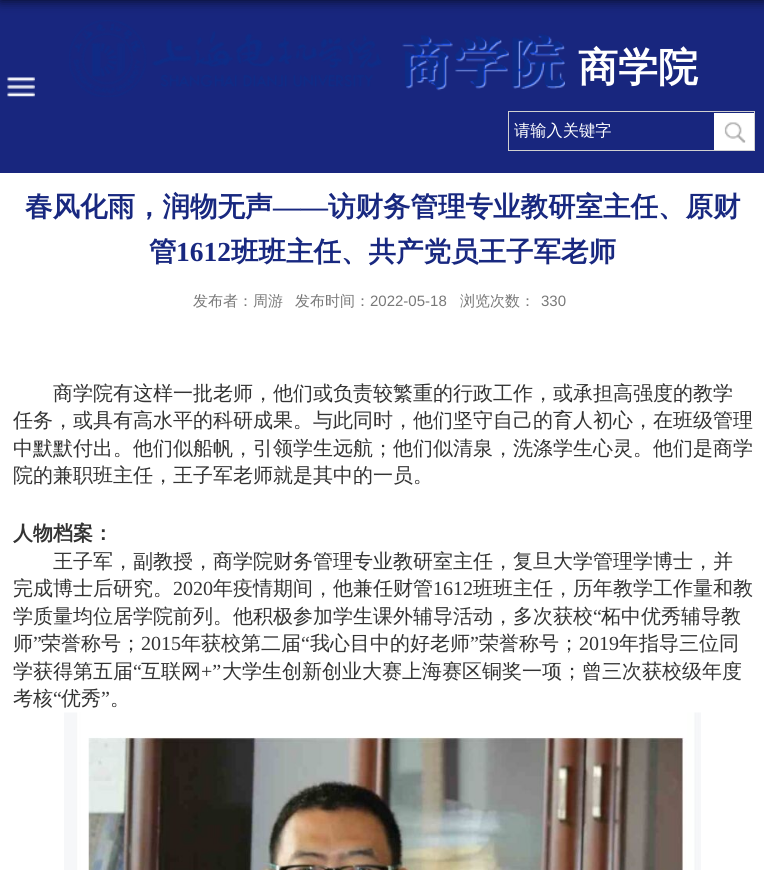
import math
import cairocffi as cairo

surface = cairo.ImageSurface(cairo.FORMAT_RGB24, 764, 870)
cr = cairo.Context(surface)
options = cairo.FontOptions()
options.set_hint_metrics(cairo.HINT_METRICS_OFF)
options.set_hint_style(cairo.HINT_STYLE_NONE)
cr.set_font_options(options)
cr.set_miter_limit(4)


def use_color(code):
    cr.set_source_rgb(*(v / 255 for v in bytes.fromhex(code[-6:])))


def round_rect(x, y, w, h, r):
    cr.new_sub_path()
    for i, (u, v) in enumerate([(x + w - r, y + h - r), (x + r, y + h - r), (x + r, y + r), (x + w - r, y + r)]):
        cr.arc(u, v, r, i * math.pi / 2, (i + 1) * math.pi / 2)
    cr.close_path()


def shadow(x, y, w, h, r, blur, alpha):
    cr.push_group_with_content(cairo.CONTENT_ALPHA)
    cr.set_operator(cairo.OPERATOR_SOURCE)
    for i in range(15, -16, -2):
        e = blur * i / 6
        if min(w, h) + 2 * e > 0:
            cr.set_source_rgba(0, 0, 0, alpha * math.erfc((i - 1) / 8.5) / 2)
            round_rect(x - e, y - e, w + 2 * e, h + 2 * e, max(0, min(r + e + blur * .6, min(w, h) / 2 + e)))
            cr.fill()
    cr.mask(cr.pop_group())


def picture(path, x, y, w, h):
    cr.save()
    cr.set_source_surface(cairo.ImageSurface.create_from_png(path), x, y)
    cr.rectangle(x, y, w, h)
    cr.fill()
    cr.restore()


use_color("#ffffff")
cr.paint()
use_color("#18267e")
cr.rectangle(0, 0, 764, 173)
cr.fill()
use_color("#000000")
shadow(0, -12, 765, 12, 0, 6, 0.8)
picture("img1.png", 7, 77, 28, 20)
picture("img2.png", 69, 20, 496, 77)
cr.select_font_face("WenQuanYi Zen Hei", cairo.FONT_SLANT_NORMAL, cairo.FONT_WEIGHT_BOLD)
cr.set_font_size(40)
use_color("#ffffff")
cr.move_to(578, 81)
cr.show_text("商学院")
cr.rectangle(508.5, 111.5, 246, 39)
use_color("#d0d0d0")
cr.set_line_width(1)
cr.stroke()
cr.select_font_face("WenQuanYi Zen Hei Medium")
cr.set_font_size(16.25)
use_color("#ffffff")
cr.move_to(514, 136)
cr.show_text("请输入关键字")
cr.rectangle(714, 113, 40, 37)
cr.fill()
picture("img3.png", 724, 122, 22, 21)
cr.select_font_face("WenQuanYi Zen Hei", cairo.FONT_SLANT_NORMAL, cairo.FONT_WEIGHT_BOLD)
cr.set_font_size(27.5)
use_color("#182880")
cr.move_to(25, 216)
cr.show_text("春风化雨，润物无声")
cr.select_font_face("Liberation Serif", cairo.FONT_SLANT_NORMAL, cairo.FONT_WEIGHT_BOLD)
cr.move_to(273, 216)
cr.show_text("——")
cr.select_font_face("WenQuanYi Zen Hei", cairo.FONT_SLANT_NORMAL, cairo.FONT_WEIGHT_BOLD)
cr.move_to(328, 216)
cr.show_text("访财务管理专业教研室主任、原财")
cr.move_to(149, 261)
cr.show_text("管")
cr.select_font_face("Liberation Serif", cairo.FONT_SLANT_NORMAL, cairo.FONT_WEIGHT_BOLD)
cr.move_to(176, 261)
cr.show_text("1612")
cr.select_font_face("WenQuanYi Zen Hei", cairo.FONT_SLANT_NORMAL, cairo.FONT_WEIGHT_BOLD)
cr.move_to(231, 261)
cr.show_text("班班主任、共产党员王子军老师")
cr.select_font_face("WenQuanYi Zen Hei Medium")
cr.set_font_size(15)
use_color("#787878")
cr.move_to(193, 306)
cr.show_text("发布者：周游")
cr.move_to(295, 306)
cr.show_text("发布时间：")
cr.select_font_face("Liberation Sans")
cr.move_to(370, 306)
cr.show_text("2022-05-18")
cr.select_font_face("WenQuanYi Zen Hei Medium")
cr.move_to(460, 306)
cr.show_text("浏览次数：")
cr.select_font_face("Liberation Sans")
cr.move_to(541, 306)
cr.show_text("330")
cr.select_font_face("WenQuanYi Zen Hei Medium")
cr.set_font_size(20)
use_color("#333333")
cr.move_to(53, 400)
cr.show_text("商学院有这样一批老师，他们或负责较繁重的行政工作，或承担高强度的教学")
cr.move_to(13, 427)
cr.show_text("任务，或具有高水平的科研成果。与此同时，他们坚守自己的育人初心，在班级管理")
cr.move_to(13, 455)
cr.show_text("中默默付出。他们似船帆，引领学生远航；他们似清泉，洗涤学生心灵。他们是商学")
cr.move_to(13, 482)
cr.show_text("院的兼职班主任，王子军老师就是其中的一员。")
cr.select_font_face("WenQuanYi Zen Hei", cairo.FONT_SLANT_NORMAL, cairo.FONT_WEIGHT_BOLD)
cr.move_to(13, 540)
cr.show_text("人物档案：")
cr.select_font_face("WenQuanYi Zen Hei Medium")
cr.move_to(53, 568)
cr.show_text("王子军，副教授，商学院财务管理专业教研室主任，复旦大学管理学博士，并")
cr.move_to(13, 595)
cr.show_text("完成博士后研究。")
cr.select_font_face("Liberation Serif")
cr.move_to(173, 595)
cr.show_text("2020")
cr.select_font_face("WenQuanYi Zen Hei Medium")
cr.move_to(213, 595)
cr.show_text("年疫情期间，他兼任财管")
cr.select_font_face("Liberation Serif")
cr.move_to(433, 595)
cr.show_text("1612")
cr.select_font_face("WenQuanYi Zen Hei Medium")
cr.move_to(473, 595)
cr.show_text("班班主任，历年教学工作量和教")
cr.move_to(13, 623)
cr.show_text("学质量均位居学院前列。他积极参加学生课外辅导活动，多次获校")
cr.select_font_face("Liberation Serif")
cr.move_to(593, 623)
cr.show_text("“")
cr.select_font_face("WenQuanYi Zen Hei Medium")
cr.move_to(601, 623)
cr.show_text("柘中优秀辅导教")
cr.move_to(13, 650)
cr.show_text("师")
cr.select_font_face("Liberation Serif")
cr.move_to(33, 650)
cr.show_text("”")
cr.select_font_face("WenQuanYi Zen Hei Medium")
cr.move_to(41, 650)
cr.show_text("荣誉称号；")
cr.select_font_face("Liberation Serif")
cr.move_to(141, 650)
cr.show_text("2015")
cr.select_font_face("WenQuanYi Zen Hei Medium")
cr.move_to(181, 650)
cr.show_text("年获校第二届")
cr.select_font_face("Liberation Serif")
cr.move_to(301, 650)
cr.show_text("“")
cr.select_font_face("WenQuanYi Zen Hei Medium")
cr.move_to(310, 650)
cr.show_text("我心目中的好老师")
cr.select_font_face("Liberation Serif")
cr.move_to(470, 650)
cr.show_text("”")
cr.select_font_face("WenQuanYi Zen Hei Medium")
cr.move_to(479, 650)
cr.show_text("荣誉称号；")
cr.select_font_face("Liberation Serif")
cr.move_to(579, 650)
cr.show_text("2019")
cr.select_font_face("WenQuanYi Zen Hei Medium")
cr.move_to(619, 650)
cr.show_text("年指导三位同")
cr.move_to(13, 678)
cr.show_text("学获得第五届")
cr.select_font_face("Liberation Serif")
cr.move_to(133, 678)
cr.show_text("“")
cr.select_font_face("WenQuanYi Zen Hei Medium")
cr.move_to(141, 678)
cr.show_text("互联网")
cr.select_font_face("Liberation Serif")
cr.move_to(201, 678)
cr.show_text("+”")
cr.select_font_face("WenQuanYi Zen Hei Medium")
cr.move_to(222, 678)
cr.show_text("大学生创新创业大赛上海赛区铜奖一项；曾三次获校级年度")
cr.move_to(13, 705)
cr.show_text("考核")
cr.select_font_face("Liberation Serif")
cr.move_to(53, 705)
cr.show_text("“")
cr.select_font_face("WenQuanYi Zen Hei Medium")
cr.move_to(61, 705)
cr.show_text("优秀")
cr.select_font_face("Liberation Serif")
cr.move_to(101, 705)
cr.show_text("”")
cr.select_font_face("WenQuanYi Zen Hei Medium")
cr.move_to(110, 705)
cr.show_text("。")
picture("img4.png", 64, 712, 637, 158)
surface.write_to_png("result.png")
